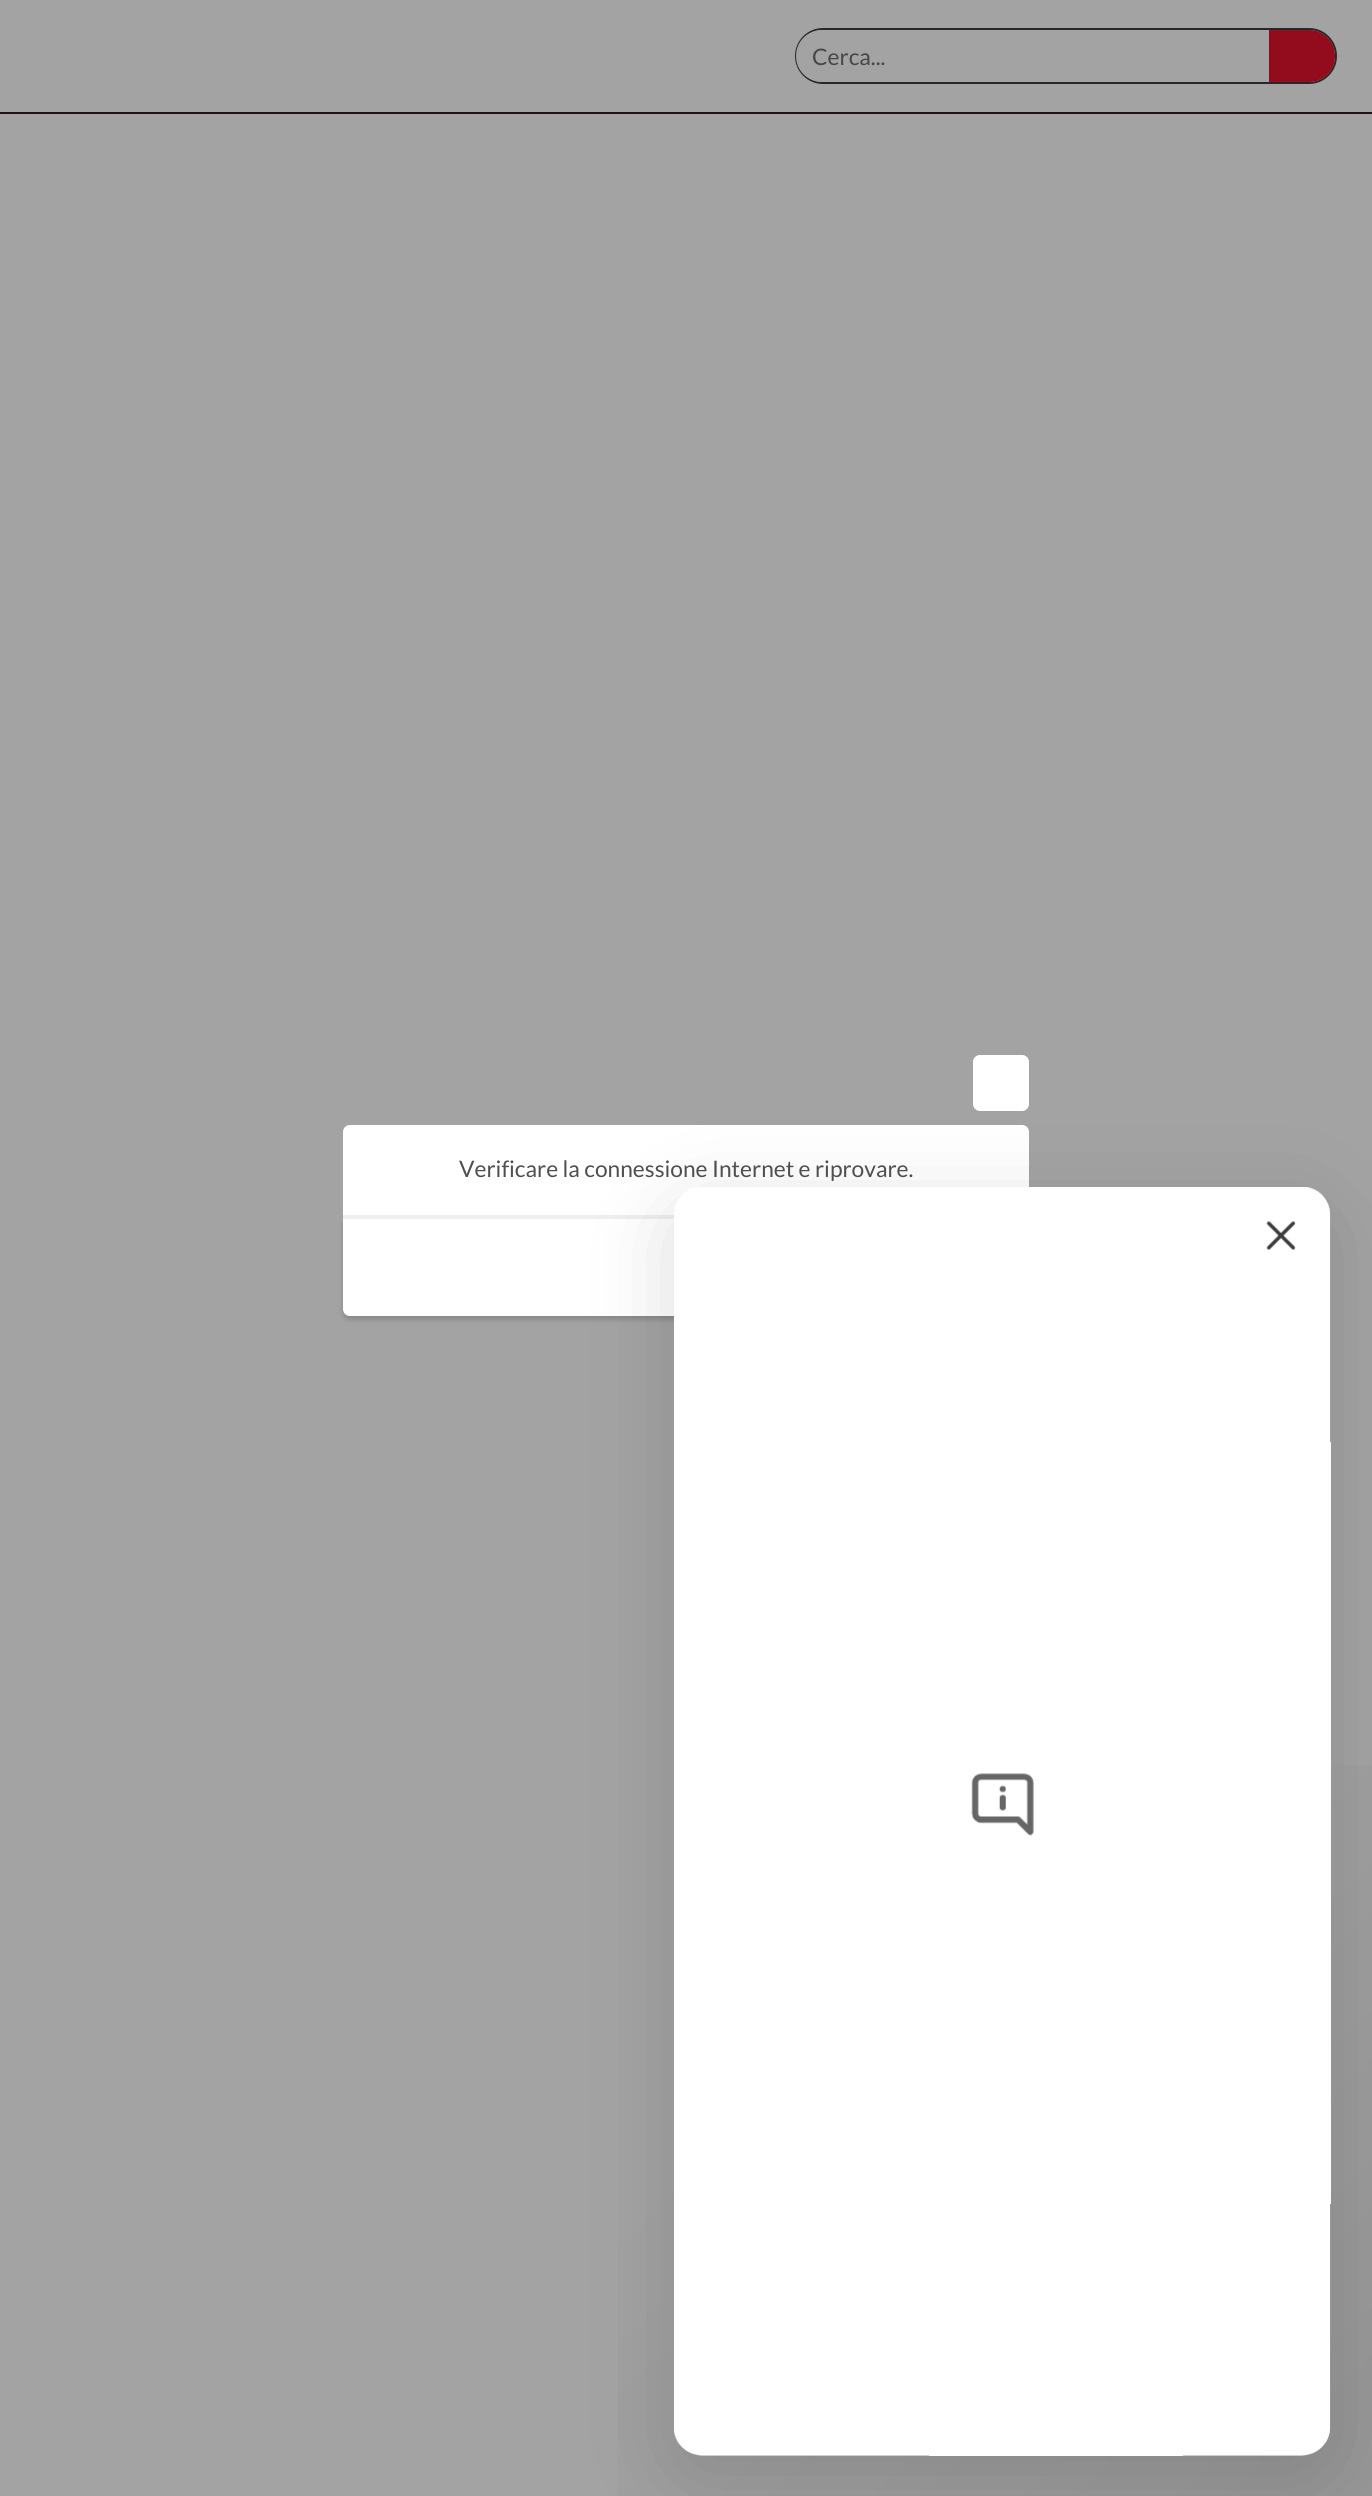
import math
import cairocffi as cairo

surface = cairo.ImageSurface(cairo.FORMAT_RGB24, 1372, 2496)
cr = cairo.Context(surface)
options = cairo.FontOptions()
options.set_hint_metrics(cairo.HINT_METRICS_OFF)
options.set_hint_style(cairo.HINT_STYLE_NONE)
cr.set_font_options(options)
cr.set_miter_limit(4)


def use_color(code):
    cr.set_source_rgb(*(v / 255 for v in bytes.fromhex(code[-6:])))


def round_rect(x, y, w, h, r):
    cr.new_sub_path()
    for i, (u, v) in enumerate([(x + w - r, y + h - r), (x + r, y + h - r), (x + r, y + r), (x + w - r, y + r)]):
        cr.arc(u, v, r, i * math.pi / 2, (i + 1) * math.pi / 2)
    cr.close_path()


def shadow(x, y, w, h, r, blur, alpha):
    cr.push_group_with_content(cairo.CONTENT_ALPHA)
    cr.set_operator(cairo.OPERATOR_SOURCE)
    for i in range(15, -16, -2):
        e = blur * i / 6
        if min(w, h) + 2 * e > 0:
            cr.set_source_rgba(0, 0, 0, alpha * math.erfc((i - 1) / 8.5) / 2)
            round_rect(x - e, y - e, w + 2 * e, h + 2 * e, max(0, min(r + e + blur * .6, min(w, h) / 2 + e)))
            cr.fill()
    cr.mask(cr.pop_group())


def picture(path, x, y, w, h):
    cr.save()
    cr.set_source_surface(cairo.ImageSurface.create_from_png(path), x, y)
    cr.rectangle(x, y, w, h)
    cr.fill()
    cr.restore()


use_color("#a3a3a3")
cr.paint()
round_rect(796, 29, 540, 54, 27)
use_color("#282828")
cr.stroke()
use_color("#a3a3a3")
cr.new_path()
cr.move_to(822, 30)
cr.line_to(1269, 30)
cr.line_to(1269, 82)
cr.line_to(822, 82)
cr.curve_to(807.5, 82, 796, 70.5, 796, 56)
cr.curve_to(796, 41.5, 807.5, 30, 822, 30)
cr.close_path()
cr.fill()
cr.select_font_face("Lato")
cr.set_font_size(22.75)
use_color("#474747")
cr.move_to(812, 65)
cr.show_text("Cerca...")
use_color("#920c1d")
cr.new_path()
cr.move_to(1269, 30)
cr.line_to(1309, 30)
cr.curve_to(1323.5, 30, 1335, 41.5, 1335, 56)
cr.curve_to(1335, 70.5, 1323.5, 82, 1309, 82)
cr.line_to(1269, 82)
cr.close_path()
cr.fill()
use_color("#1f1213")
cr.rectangle(0, 112, 1372, 2)
cr.fill()
gradient = cairo.LinearGradient(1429, 2443, 204, 1178)
gradient.add_color_stop_rgba(0, 0, 0, 0, 0.08)
gradient.add_color_stop_rgba(0.41, 0, 0, 0, 0)
cr.set_source(gradient)
cr.rectangle(617, 1765, 755, 731)
cr.fill()
use_color("#ffffff")
round_rect(973, 1055, 56, 56, 7)
cr.fill()
use_color("#000000")
shadow(343, 1218, 686, 102, 7, 2.5, 0.16)
use_color("#ffffff")
cr.new_path()
cr.move_to(350, 1125)
cr.line_to(1022, 1125)
cr.curve_to(1026, 1125, 1029, 1128, 1029, 1132)
cr.line_to(1029, 1215)
cr.line_to(343, 1215)
cr.line_to(343, 1132)
cr.curve_to(343, 1128, 346, 1125, 350, 1125)
cr.close_path()
cr.fill()
cr.new_path()
cr.move_to(343, 1215)
cr.line_to(1029, 1215)
cr.line_to(1029, 1309)
cr.curve_to(1029, 1313, 1026, 1316, 1022, 1316)
cr.line_to(350, 1316)
cr.curve_to(346, 1316, 343, 1313, 343, 1309)
cr.close_path()
cr.fill()
use_color("#efefef")
cr.rectangle(343, 1215, 331, 4)
cr.fill()
use_color("#000000")
shadow(667, 1201, 670, 1282, 35, 42, 0.12)
use_color("#ffffff")
round_rect(674, 1187, 656, 1268, 28)
cr.fill()
picture("img1.png", 674, 1187, 657, 1269)
use_color("#4f4f4f")
cr.move_to(459, 1177)
cr.show_text("Verificare la connessione Internet e riprovare.")
surface.write_to_png("result.png")
